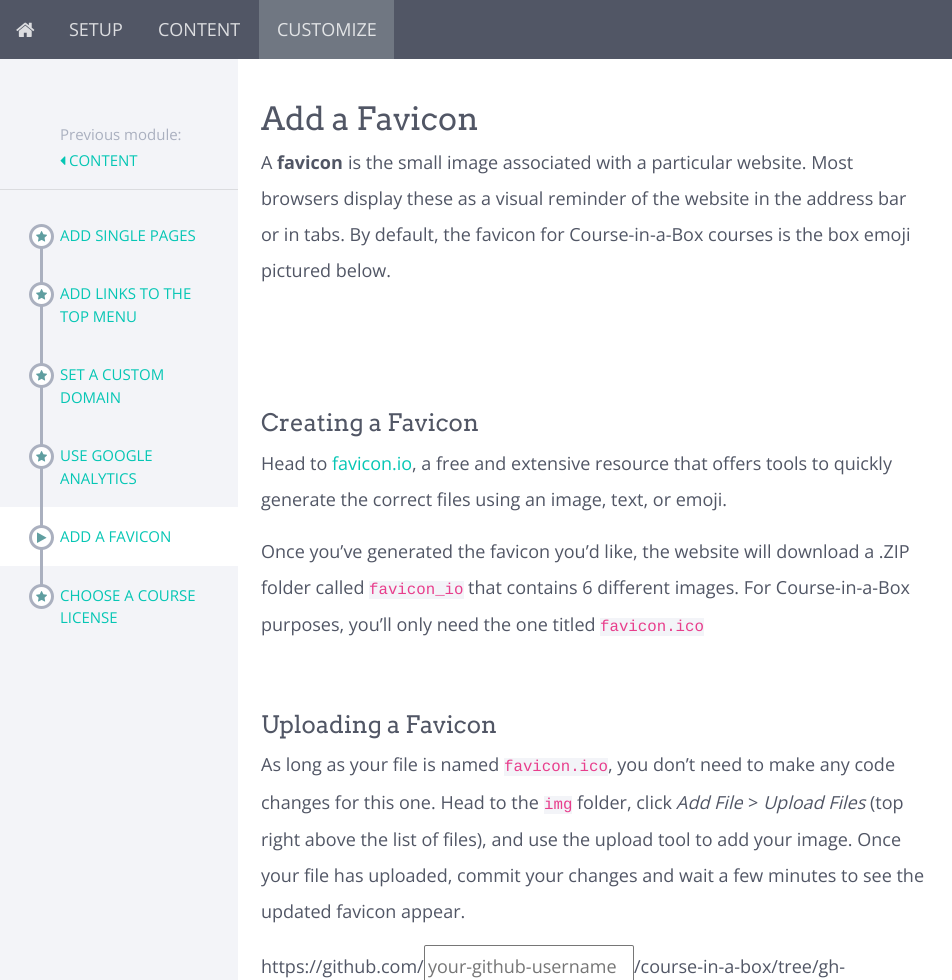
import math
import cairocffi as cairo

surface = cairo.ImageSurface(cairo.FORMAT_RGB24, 952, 980)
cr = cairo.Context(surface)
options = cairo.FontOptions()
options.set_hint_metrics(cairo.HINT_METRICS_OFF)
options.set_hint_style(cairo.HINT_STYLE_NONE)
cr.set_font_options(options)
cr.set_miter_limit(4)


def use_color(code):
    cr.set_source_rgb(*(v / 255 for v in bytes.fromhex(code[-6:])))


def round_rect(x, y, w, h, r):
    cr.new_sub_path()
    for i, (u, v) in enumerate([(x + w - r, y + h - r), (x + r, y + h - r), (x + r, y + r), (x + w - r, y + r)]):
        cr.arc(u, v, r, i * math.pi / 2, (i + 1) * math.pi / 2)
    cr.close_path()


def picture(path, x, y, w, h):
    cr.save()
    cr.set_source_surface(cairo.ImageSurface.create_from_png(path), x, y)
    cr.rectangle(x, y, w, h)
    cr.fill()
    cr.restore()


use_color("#ffffff")
cr.paint()
use_color("#515665")
cr.rectangle(0, 0, 952, 59)
cr.fill()
picture("img1.png", 16, 22, 19, 15)
cr.select_font_face("Open Sans")
cr.set_font_size(18)
use_color("#dcdde0")
cr.move_to(69, 36)
cr.show_text("SETUP")
cr.move_to(158, 36)
cr.show_text("CONTENT")
use_color("#707782")
cr.rectangle(259, 0, 135, 59)
cr.fill()
use_color("#e2e4e6")
cr.move_to(277, 36)
cr.show_text("CUSTOMIZE")
use_color("#f3f4f8")
cr.rectangle(0, 59, 238, 921)
cr.fill()
cr.set_font_size(15)
use_color("#aab0bf")
cr.move_to(60, 140)
cr.show_text("Previous module:")
picture("img2.png", 60, 156, 6, 9)
use_color("#05c6b4")
cr.move_to(69, 166)
cr.show_text("CONTENT")
use_color("#dbdcdf")
cr.rectangle(0, 189, 238, 1)
cr.fill()
use_color("#aab0bf")
cr.rectangle(40, 248, 3, 259)
cr.fill()
use_color("#ffffff")
cr.arc(41.5, 236.5, 11, 0, 2 * math.pi)
cr.fill_preserve()
use_color("#aab0bf")
cr.set_line_width(3)
cr.stroke()
picture("img3.png", 36, 231, 11, 11)
use_color("#05c6b4")
cr.move_to(60, 241)
cr.show_text("ADD SINGLE PAGES")
use_color("#ffffff")
cr.new_path()
cr.arc(41.5, 294.5, 11, 0, 2 * math.pi)
cr.fill_preserve()
use_color("#aab0bf")
cr.stroke()
picture("img3.png", 36, 289, 11, 11)
use_color("#05c6b4")
cr.move_to(60, 299)
cr.show_text("ADD LINKS TO THE")
cr.move_to(60, 322)
cr.show_text("TOP MENU")
use_color("#ffffff")
cr.new_path()
cr.arc(41.5, 375.5, 11, 0, 2 * math.pi)
cr.fill_preserve()
use_color("#aab0bf")
cr.stroke()
picture("img3.png", 36, 370, 11, 11)
use_color("#05c6b4")
cr.move_to(60, 380)
cr.show_text("SET A CUSTOM")
cr.move_to(60, 403)
cr.show_text("DOMAIN")
use_color("#ffffff")
cr.new_path()
cr.arc(41.5, 456.5, 11, 0, 2 * math.pi)
cr.fill_preserve()
use_color("#aab0bf")
cr.stroke()
picture("img3.png", 36, 451, 11, 11)
use_color("#05c6b4")
cr.move_to(60, 461)
cr.show_text("USE GOOGLE")
cr.move_to(60, 484)
cr.show_text("ANALYTICS")
use_color("#ffffff")
cr.rectangle(0, 507, 238, 59)
cr.fill()
use_color("#aab0bf")
cr.rectangle(40, 507, 3, 78)
cr.fill()
use_color("#ffffff")
cr.arc(41.5, 537.5, 11, 0, 2 * math.pi)
cr.fill_preserve()
use_color("#aab0bf")
cr.stroke()
picture("img4.png", 37, 532, 10, 11)
use_color("#05c6b4")
cr.move_to(60, 542)
cr.show_text("ADD A FAVICON")
use_color("#ffffff")
cr.new_path()
cr.arc(41.5, 596.5, 11, 0, 2 * math.pi)
cr.fill_preserve()
use_color("#aab0bf")
cr.stroke()
picture("img3.png", 36, 591, 11, 11)
use_color("#05c6b4")
cr.move_to(60, 601)
cr.show_text("CHOOSE A COURSE")
cr.move_to(60, 623)
cr.show_text("LICENSE")
cr.select_font_face("Arvo")
cr.set_font_size(32)
use_color("#515665")
cr.move_to(261, 130)
cr.show_text("Add a Favicon")
cr.select_font_face("Open Sans")
cr.set_font_size(18)
cr.move_to(261, 169)
cr.show_text("A")
cr.select_font_face("Open Sans", cairo.FONT_SLANT_NORMAL, cairo.FONT_WEIGHT_BOLD)
cr.move_to(277, 169)
cr.show_text("favicon")
cr.select_font_face("Open Sans")
cr.move_to(348, 169)
cr.show_text("is the small image associated with a particular website. Most")
cr.move_to(261, 205)
cr.show_text("browsers display these as a visual reminder of the website in the address bar")
cr.move_to(261, 241)
cr.show_text("or in tabs. By default, the favicon for Course-in-a-Box courses is the box emoji")
cr.move_to(261, 277)
cr.show_text("pictured below.")
cr.select_font_face("Arvo")
cr.set_font_size(24)
cr.move_to(261, 431)
cr.show_text("Creating a Favicon")
cr.select_font_face("Open Sans")
cr.set_font_size(18)
cr.move_to(261, 470)
cr.show_text("Head to")
use_color("#05c6b4")
cr.move_to(332, 470)
cr.show_text("favicon.io")
use_color("#515665")
cr.move_to(412, 470)
cr.show_text(", a free and extensive resource that offers tools to quickly")
cr.move_to(261, 506)
cr.show_text("generate the correct files using an image, text, or emoji.")
cr.move_to(261, 558)
cr.show_text("Once you’ve generated the favicon you’d like, the website will download a .ZIP")
cr.move_to(261, 594)
cr.show_text("folder called")
use_color("#f3f4f8")
cr.rectangle(369, 581, 95, 18)
cr.fill()
cr.select_font_face("Liberation Mono")
cr.set_font_size(15.75)
use_color("#e83e8c")
cr.move_to(369, 594)
cr.show_text("favicon_io")
cr.select_font_face("Open Sans")
cr.set_font_size(18)
use_color("#515665")
cr.move_to(468, 594)
cr.show_text("that contains 6 different images. For Course-in-a-Box")
cr.move_to(261, 631)
cr.show_text("purposes, you’ll only need the one titled")
use_color("#f3f4f8")
cr.rectangle(600, 618, 104, 18)
cr.fill()
cr.select_font_face("Liberation Mono")
cr.set_font_size(15.75)
use_color("#e83e8c")
cr.move_to(600, 631)
cr.show_text("favicon.ico")
cr.select_font_face("Arvo")
cr.set_font_size(24)
use_color("#515665")
cr.move_to(261, 733)
cr.show_text("Uploading a Favicon")
cr.select_font_face("Open Sans")
cr.set_font_size(18)
cr.move_to(261, 771)
cr.show_text("As long as your file is named")
use_color("#f3f4f8")
cr.rectangle(504, 758, 104, 18)
cr.fill()
cr.select_font_face("Liberation Mono")
cr.set_font_size(15.75)
use_color("#e83e8c")
cr.move_to(504, 771)
cr.show_text("favicon.ico")
cr.select_font_face("Open Sans")
cr.set_font_size(18)
use_color("#515665")
cr.move_to(608, 771)
cr.show_text(", you don’t need to make any code")
cr.move_to(261, 809)
cr.show_text("changes for this one. Head to the")
use_color("#f3f4f8")
cr.rectangle(544, 796, 28, 18)
cr.fill()
cr.select_font_face("Liberation Mono")
cr.set_font_size(15.75)
use_color("#e83e8c")
cr.move_to(544, 809)
cr.show_text("img")
cr.select_font_face("Open Sans")
cr.set_font_size(18)
use_color("#515665")
cr.move_to(577, 809)
cr.show_text("folder, click")
cr.select_font_face("Open Sans", cairo.FONT_SLANT_ITALIC)
cr.move_to(676, 809)
cr.show_text("Add File")
cr.select_font_face("Open Sans")
cr.move_to(748, 809)
cr.show_text(">")
cr.select_font_face("Open Sans", cairo.FONT_SLANT_ITALIC)
cr.move_to(763, 809)
cr.show_text("Upload Files")
cr.select_font_face("Open Sans")
cr.move_to(870, 809)
cr.show_text("(top")
cr.move_to(261, 846)
cr.show_text("right above the list of files), and use the upload tool to add your image. Once")
cr.move_to(261, 882)
cr.show_text("your file has uploaded, commit your changes and wait a few minutes to see the")
cr.move_to(261, 918)
cr.show_text("updated favicon appear.")
cr.move_to(261, 973)
cr.show_text("https://github.com/")
round_rect(424.5, 945.5, 209, 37, 1.5)
use_color("#767676")
cr.set_line_width(1)
cr.stroke()
use_color("#757575")
cr.move_to(428, 973)
cr.show_text("your-github-username")
use_color("#515665")
cr.move_to(634, 973)
cr.show_text("/course-in-a-box/tree/gh-")
surface.write_to_png("result.png")
